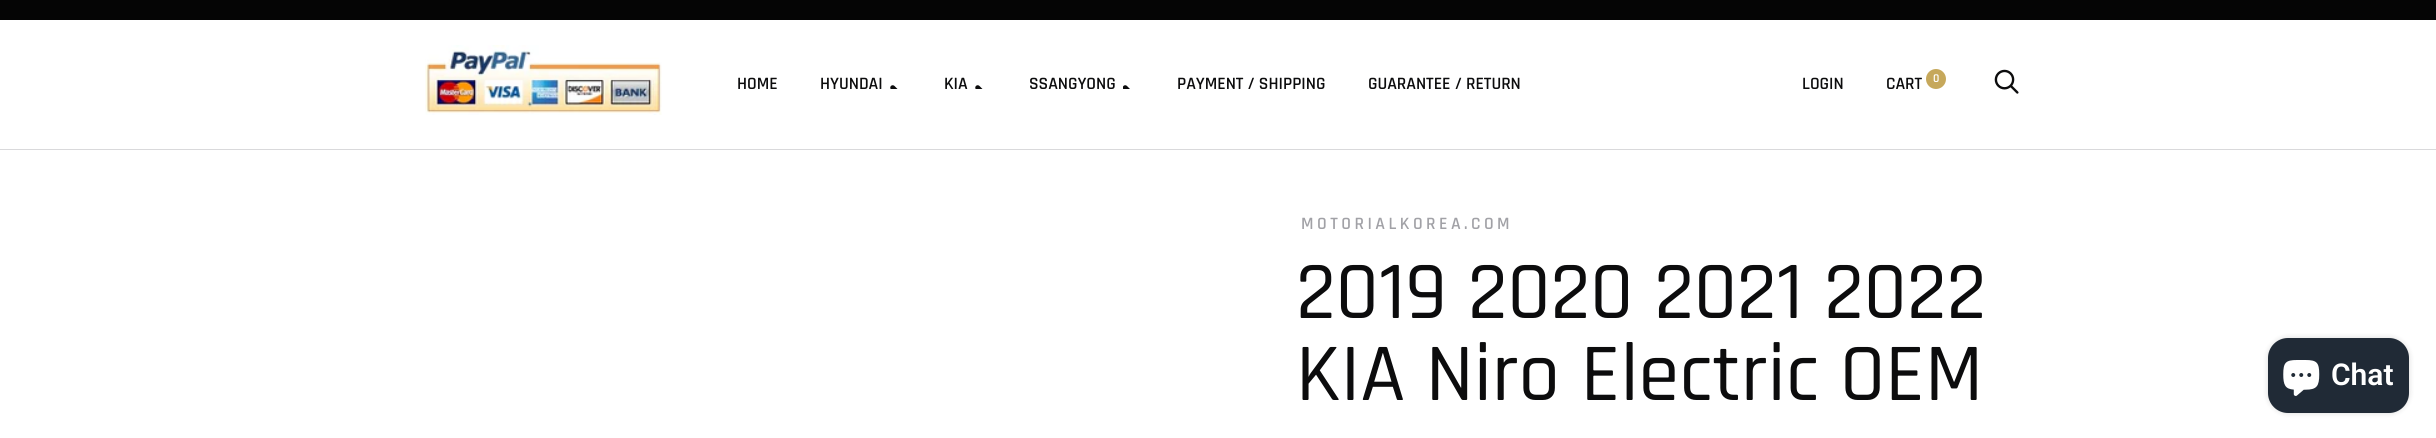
import math
import cairocffi as cairo

surface = cairo.ImageSurface(cairo.FORMAT_RGB24, 2436, 438)
cr = cairo.Context(surface)
options = cairo.FontOptions()
options.set_hint_metrics(cairo.HINT_METRICS_OFF)
options.set_hint_style(cairo.HINT_STYLE_NONE)
cr.set_font_options(options)
cr.set_miter_limit(4)


def use_color(code):
    cr.set_source_rgb(*(v / 255 for v in bytes.fromhex(code[-6:])))


def spaced_text(x, y, s, letter, word):
    cr.move_to(x, y)
    for ch in s:
        cr.show_text(ch)
        cr.rel_move_to(letter + word * (ch == ' '), 0)


def round_rect(x, y, w, h, r):
    cr.new_sub_path()
    for i, (u, v) in enumerate([(x + w - r, y + h - r), (x + r, y + h - r), (x + r, y + r), (x + w - r, y + r)]):
        cr.arc(u, v, r, i * math.pi / 2, (i + 1) * math.pi / 2)
    cr.close_path()


def shadow(x, y, w, h, r, blur, alpha):
    cr.push_group_with_content(cairo.CONTENT_ALPHA)
    cr.set_operator(cairo.OPERATOR_SOURCE)
    for i in range(15, -16, -2):
        e = blur * i / 6
        if min(w, h) + 2 * e > 0:
            cr.set_source_rgba(0, 0, 0, alpha * math.erfc((i - 1) / 8.5) / 2)
            round_rect(x - e, y - e, w + 2 * e, h + 2 * e, max(0, min(r + e + blur * .6, min(w, h) / 2 + e)))
            cr.fill()
    cr.mask(cr.pop_group())


def picture(path, x, y, w, h):
    cr.save()
    cr.set_source_surface(cairo.ImageSurface.create_from_png(path), x, y)
    cr.rectangle(x, y, w, h)
    cr.fill()
    cr.restore()


use_color("#ffffff")
cr.paint()
use_color("#050505")
cr.rectangle(0, 0, 2436, 20)
cr.fill()
use_color("#d9d9db")
cr.rectangle(0, 149, 2436, 1)
cr.fill()
picture("img1.png", 425, 45, 237, 70)
cr.select_font_face("Rajdhani SemiBold")
cr.set_font_size(17.5)
use_color("#0c0c0d")
cr.move_to(737, 89)
cr.show_text("HOME")
cr.move_to(820, 89)
cr.show_text("HYUNDAI")
picture("img2.png", 890, 85, 8, 4)
cr.move_to(944, 89)
cr.show_text("KIA")
picture("img2.png", 975, 85, 8, 4)
cr.move_to(1029, 89)
cr.show_text("SSANGYONG")
picture("img3.png", 1123, 85, 7, 4)
cr.move_to(1177, 89)
cr.show_text("PAYMENT / SHIPPING")
cr.move_to(1368, 89)
cr.show_text("GUARANTEE / RETURN")
cr.move_to(1802, 89)
cr.show_text("LOGIN")
cr.move_to(1886, 89)
cr.show_text("CART")
use_color("#c6a85b")
cr.new_path()
cr.arc(1936, 79, 10, 0, 2 * math.pi)
cr.fill()
cr.set_font_size(12)
use_color("#ffffff")
cr.move_to(1933, 82)
cr.show_text("0")
picture("img4.png", 1994, 69, 25, 25)
cr.set_font_size(17.5)
use_color("#a1a1a6")
spaced_text(1301, 229, "MOTORIALKOREA.COM", 3.5, 0)
cr.select_font_face("Rajdhani Medium")
cr.set_font_size(82.5)
use_color("#0c0c0d")
cr.move_to(1296, 318)
cr.show_text("2019 2020 2021 2022")
cr.move_to(1296, 400)
cr.show_text("KIA Niro Electric OEM")
use_color("#000000")
shadow(2268, 338, 141, 75, 20, 3, 0.15)
use_color("#202a36")
round_rect(2268, 338, 141, 75, 20)
cr.fill()
picture("img5.png", 2283, 360, 37, 36)
cr.select_font_face("Roboto SemiBold")
cr.set_font_size(30)
use_color("#ffffff")
cr.move_to(2331, 385)
cr.show_text("Chat")
surface.write_to_png("result.png")
